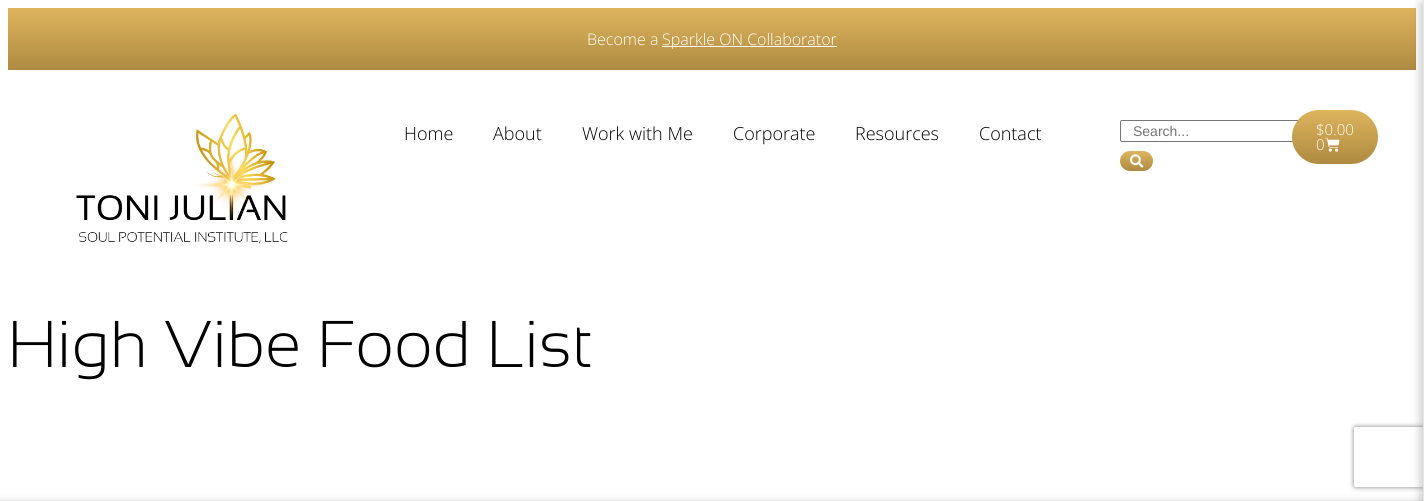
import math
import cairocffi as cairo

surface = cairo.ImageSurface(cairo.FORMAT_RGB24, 1424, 501)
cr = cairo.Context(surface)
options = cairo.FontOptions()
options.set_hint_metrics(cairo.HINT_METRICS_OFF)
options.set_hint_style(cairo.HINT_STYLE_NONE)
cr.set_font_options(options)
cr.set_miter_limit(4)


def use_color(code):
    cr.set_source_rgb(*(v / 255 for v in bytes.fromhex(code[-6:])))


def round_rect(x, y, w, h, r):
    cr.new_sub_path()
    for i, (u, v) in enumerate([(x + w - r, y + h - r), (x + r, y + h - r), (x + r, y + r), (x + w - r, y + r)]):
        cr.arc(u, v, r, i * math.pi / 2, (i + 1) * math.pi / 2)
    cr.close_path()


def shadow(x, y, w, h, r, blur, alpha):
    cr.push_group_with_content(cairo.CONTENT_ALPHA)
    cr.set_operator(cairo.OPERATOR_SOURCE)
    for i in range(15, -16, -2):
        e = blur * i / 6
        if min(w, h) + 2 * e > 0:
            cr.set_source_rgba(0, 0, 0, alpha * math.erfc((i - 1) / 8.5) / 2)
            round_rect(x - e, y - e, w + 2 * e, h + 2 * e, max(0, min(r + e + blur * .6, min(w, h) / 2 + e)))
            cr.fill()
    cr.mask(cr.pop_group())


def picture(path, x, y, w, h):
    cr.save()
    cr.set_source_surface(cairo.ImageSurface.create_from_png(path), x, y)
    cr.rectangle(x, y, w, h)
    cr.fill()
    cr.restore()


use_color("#ffffff")
cr.paint()
gradient = cairo.LinearGradient(712, 8, 712, 70)
gradient.add_color_stop_rgba(0, 0.871, 0.706, 0.365, 1)
gradient.add_color_stop_rgba(1, 0.682, 0.545, 0.255, 1)
cr.set_source(gradient)
cr.rectangle(8, 8, 1408, 62)
cr.fill()
cr.select_font_face("Open Sans Light")
cr.set_font_size(16)
use_color("#ffffff")
cr.move_to(587, 45)
cr.show_text("Become a")
cr.rectangle(662, 46, 175, 1)
cr.fill()
cr.move_to(662, 45)
cr.show_text("Sparkle ON Collaborator")
picture("img1.png", 76, 114, 212, 130)
cr.set_font_size(18)
use_color("#000000")
cr.move_to(404, 140)
cr.show_text("Home")
cr.move_to(493, 140)
cr.show_text("About")
cr.move_to(582, 140)
cr.show_text("Work with Me")
cr.move_to(733, 140)
cr.show_text("Corporate")
cr.move_to(855, 140)
cr.show_text("Resources")
cr.move_to(979, 140)
cr.show_text("Contact")
round_rect(1120.5, 120.5, 206, 21, 1.5)
use_color("#767676")
cr.set_line_width(1)
cr.stroke()
cr.select_font_face("Liberation Sans")
cr.set_font_size(14)
use_color("#757575")
cr.move_to(1133, 136)
cr.show_text("Search...")
gradient = cairo.LinearGradient(1137, 151, 1137, 171)
gradient.add_color_stop_rgba(0, 0.871, 0.706, 0.365, 1)
gradient.add_color_stop_rgba(1, 0.682, 0.545, 0.255, 1)
cr.set_source(gradient)
round_rect(1120, 151, 33, 20, 10)
cr.fill()
picture("img2.png", 1130, 154, 14, 14)
gradient = cairo.LinearGradient(1335, 110, 1335, 164)
gradient.add_color_stop_rgba(0, 0.871, 0.706, 0.365, 1)
gradient.add_color_stop_rgba(1, 0.682, 0.545, 0.255, 1)
cr.set_source(gradient)
round_rect(1292, 110, 86, 54, 27)
cr.fill()
cr.select_font_face("Open Sans Light")
cr.set_font_size(15)
use_color("#ffffff")
cr.move_to(1316, 135)
cr.show_text("$0.00")
cr.move_to(1316, 150)
cr.show_text("0")
picture("img3.png", 1325, 137, 15, 15)
use_color("#000000")
shadow(-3, 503, 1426, 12, 0, 4.5, 0.2)
use_color("#e6e6e6")
cr.rectangle(0, 500, 1424, 1)
cr.fill()
use_color("#000000")
shadow(1420, 3, 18, 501, 0, 4.5, 0.2)
cr.save()
cr.set_fill_rule(cairo.FILL_RULE_EVEN_ODD)
cr.new_path()
cr.move_to(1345, 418)
cr.line_to(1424, 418)
cr.line_to(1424, 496)
cr.line_to(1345, 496)
cr.close_path()
cr.move_to(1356, 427)
cr.line_to(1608, 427)
cr.curve_to(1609, 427, 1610, 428, 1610, 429)
cr.line_to(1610, 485)
cr.curve_to(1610, 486, 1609, 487, 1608, 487)
cr.line_to(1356, 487)
cr.curve_to(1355, 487, 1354, 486, 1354, 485)
cr.line_to(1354, 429)
cr.curve_to(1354, 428, 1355, 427, 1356, 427)
cr.close_path()
cr.clip()
use_color("#808080")
shadow(1354, 427, 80, 60, 2, 2.5, 1)
cr.restore()
use_color("#e6e6e6")
cr.rectangle(1423, 0, 1, 501)
cr.fill()
cr.select_font_face("Sansation Light Light")
cr.set_font_size(66)
use_color("#000000")
cr.move_to(8, 367)
cr.show_text("High Vibe Food List")
surface.write_to_png("result.png")
